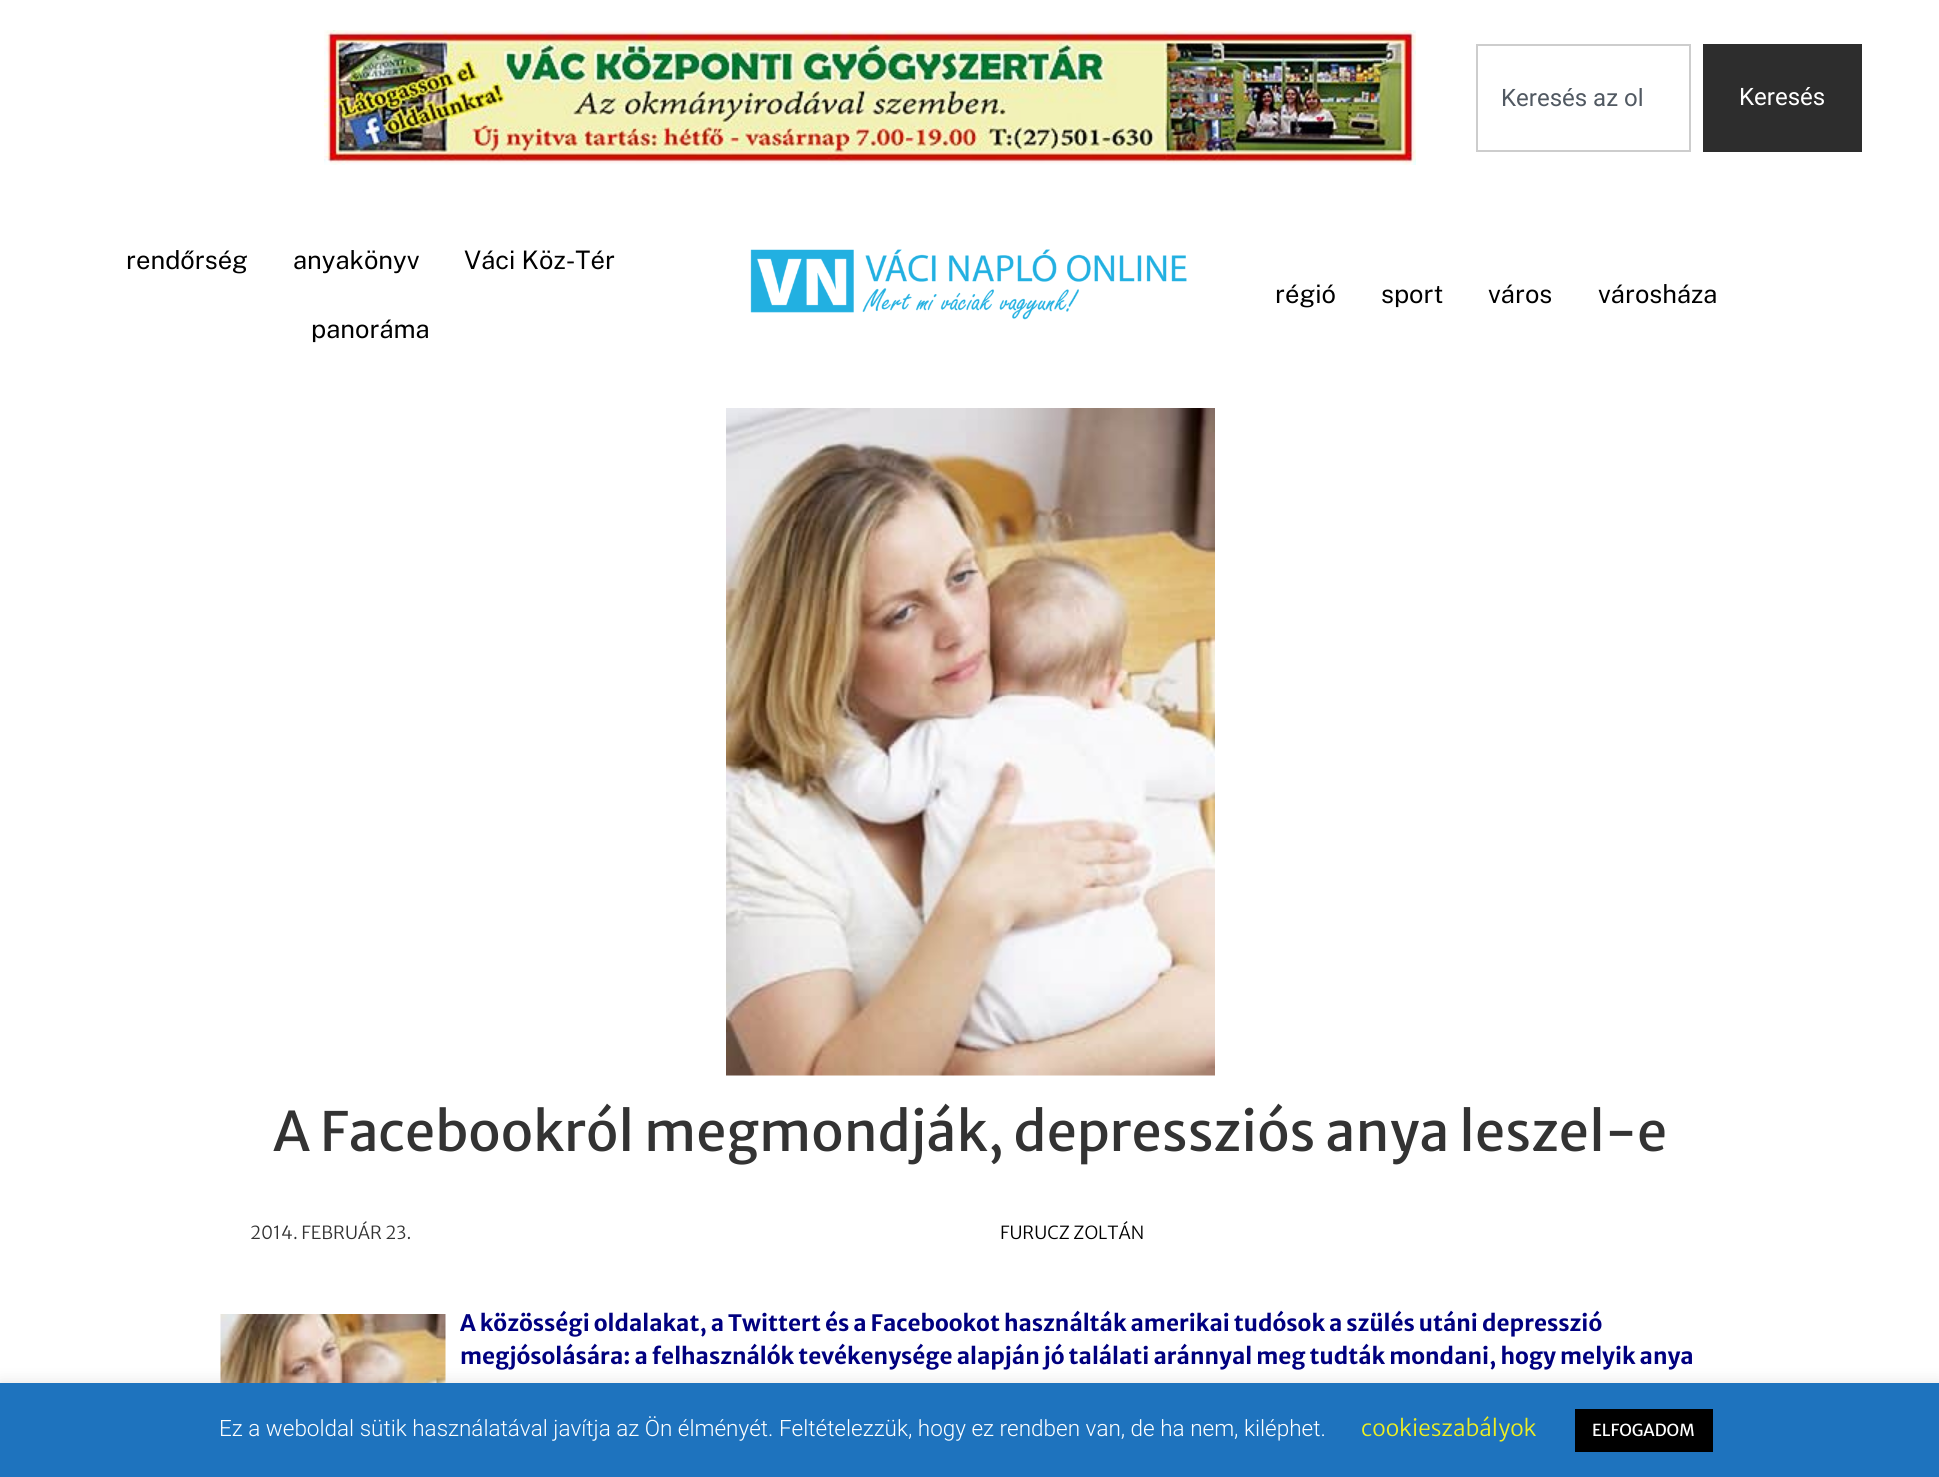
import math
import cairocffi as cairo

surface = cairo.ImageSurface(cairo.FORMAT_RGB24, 1939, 1477)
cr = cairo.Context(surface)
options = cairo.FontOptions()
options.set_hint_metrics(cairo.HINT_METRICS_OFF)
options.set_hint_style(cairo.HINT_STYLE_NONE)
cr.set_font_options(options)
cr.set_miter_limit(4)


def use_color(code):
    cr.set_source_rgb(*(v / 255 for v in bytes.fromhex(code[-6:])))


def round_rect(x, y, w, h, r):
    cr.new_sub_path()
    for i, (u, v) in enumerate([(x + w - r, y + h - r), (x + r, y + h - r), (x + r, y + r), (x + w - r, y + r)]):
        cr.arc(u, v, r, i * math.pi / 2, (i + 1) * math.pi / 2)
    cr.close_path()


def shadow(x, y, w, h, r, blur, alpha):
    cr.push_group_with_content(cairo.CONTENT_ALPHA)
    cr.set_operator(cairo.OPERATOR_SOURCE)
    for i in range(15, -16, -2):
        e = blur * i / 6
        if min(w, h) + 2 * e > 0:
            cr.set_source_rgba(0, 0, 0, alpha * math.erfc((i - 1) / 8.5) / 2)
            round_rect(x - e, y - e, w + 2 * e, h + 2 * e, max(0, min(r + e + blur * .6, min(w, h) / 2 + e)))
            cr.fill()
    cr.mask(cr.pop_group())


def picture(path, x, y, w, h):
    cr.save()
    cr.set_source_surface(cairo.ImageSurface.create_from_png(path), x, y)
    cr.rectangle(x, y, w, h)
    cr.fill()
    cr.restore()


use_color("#ffffff")
cr.paint()
picture("img1.png", 324, 30, 1092, 135)
cr.rectangle(1477, 45, 213, 106)
use_color("#cdcdcd")
cr.stroke()
cr.select_font_face("Roboto")
cr.set_font_size(24)
use_color("#515962")
cr.move_to(1501, 106)
cr.show_text("Keresés az ol")
use_color("#2d2d2d")
cr.rectangle(1703, 44, 159, 108)
cr.fill()
use_color("#ffffff")
cr.move_to(1739, 105)
cr.show_text("Keresés")
cr.select_font_face("Public Sans")
cr.set_font_size(25.5)
use_color("#000000")
cr.move_to(126, 269)
cr.show_text("rendőrség")
cr.move_to(293, 269)
cr.show_text("anyakönyv")
cr.move_to(464, 269)
cr.show_text("Váci Köz-Tér")
cr.move_to(311, 338)
cr.show_text("panoráma")
picture("img2.png", 750, 249, 437, 71)
cr.move_to(1275, 303)
cr.show_text("régió")
cr.move_to(1381, 303)
cr.show_text("sport")
cr.move_to(1488, 303)
cr.show_text("város")
cr.move_to(1598, 303)
cr.show_text("városháza")
picture("img3.png", 726, 408, 489, 668)
cr.select_font_face("Merriweather Sans")
cr.set_font_size(54)
use_color("#333333")
cr.move_to(273, 1151)
cr.show_text("A Facebookról megmondják, depressziós anya leszel-e")
cr.select_font_face("Merriweather Sans Light")
cr.set_font_size(18)
cr.move_to(250, 1239)
cr.show_text("2014. FEBRUÁR 23.")
use_color("#000000")
cr.move_to(1000, 1239)
cr.show_text("FURUCZ ZOLTÁN")
picture("img4.png", 220, 1314, 226, 69)
cr.select_font_face("Merriweather Sans", cairo.FONT_SLANT_NORMAL, cairo.FONT_WEIGHT_BOLD)
cr.set_font_size(22.5)
use_color("#000080")
cr.move_to(460, 1331)
cr.show_text("A közösségi oldalakat, a Twittert és a Facebookot használták amerikai tudósok a szülés utáni depresszió")
cr.move_to(460, 1364)
cr.show_text("megjósolására: a felhasználók tevékenysége alapján jó találati aránnyal meg tudták mondani, hogy melyik anya")
use_color("#acabab")
shadow(0, 1382, 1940, 94, 0, 7.5, 0.3)
use_color("#1e73be")
cr.rectangle(0, 1383, 1939, 94)
cr.fill()
cr.select_font_face("Roboto Light")
use_color("#ffffff")
cr.move_to(219, 1436)
cr.show_text("Ez a weboldal sütik használatával javítja az Ön élményét. Feltételezzük, hogy ez rendben van, de ha nem, kiléphet.")
cr.select_font_face("Merriweather Sans Light")
use_color("#eeee22")
cr.move_to(1361, 1436)
cr.show_text("cookieszabályok")
use_color("#000000")
cr.rectangle(1575, 1409, 138, 43)
cr.fill()
cr.select_font_face("Merriweather Sans")
cr.set_font_size(16.5)
use_color("#ffffff")
cr.move_to(1592, 1436)
cr.show_text("ELFOGADOM")
surface.write_to_png("result.png")
